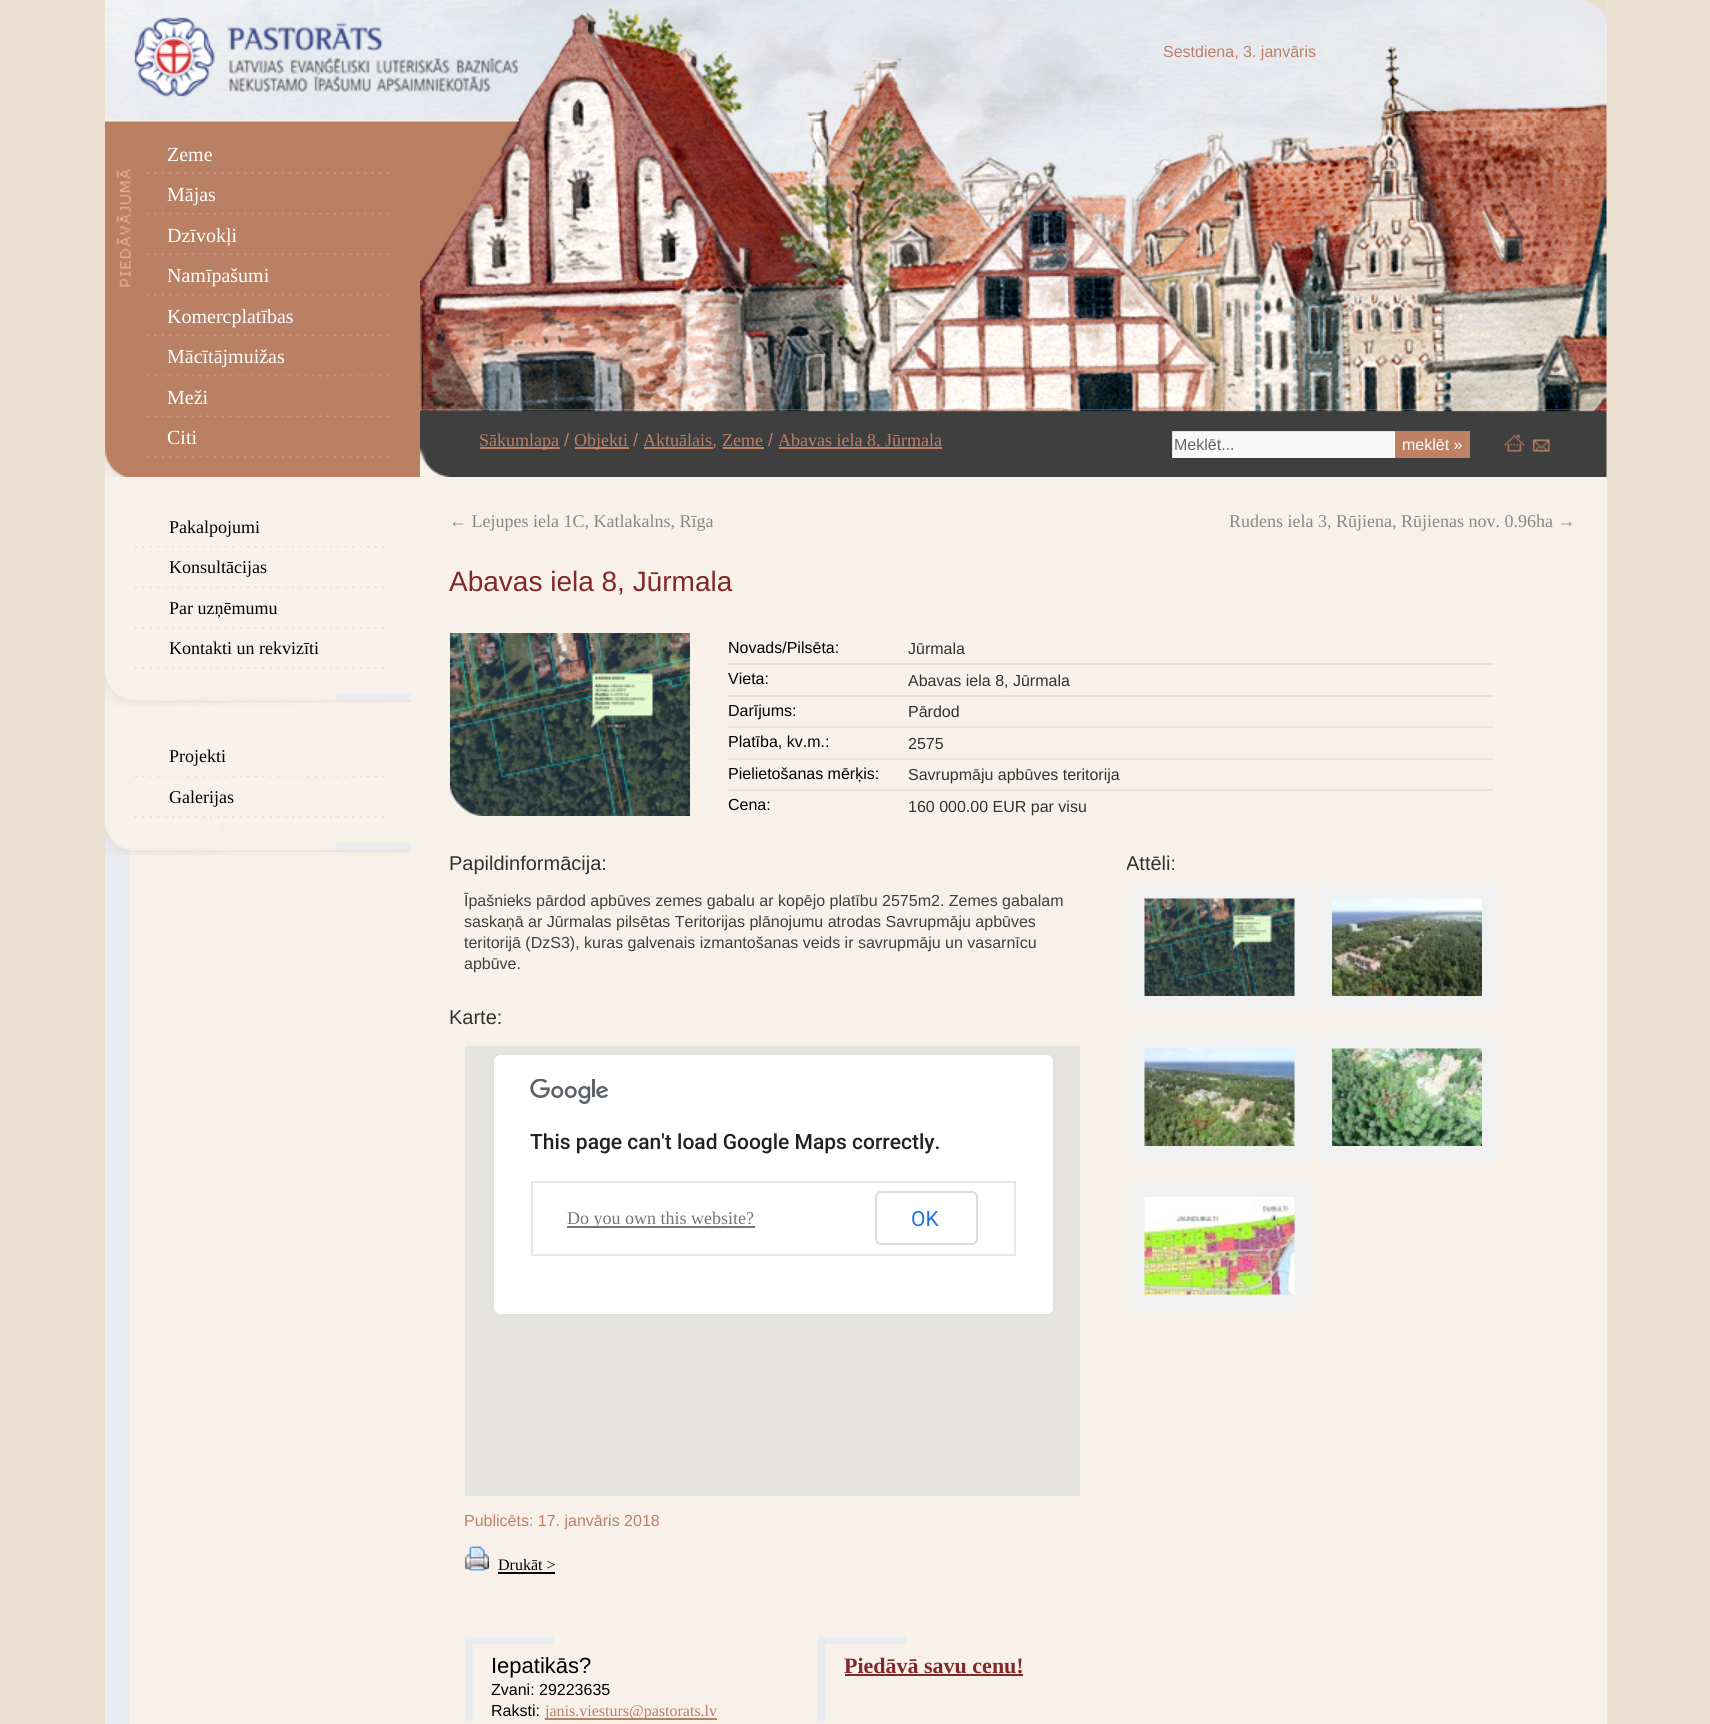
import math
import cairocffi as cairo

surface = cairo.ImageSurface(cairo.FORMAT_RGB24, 1710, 1724)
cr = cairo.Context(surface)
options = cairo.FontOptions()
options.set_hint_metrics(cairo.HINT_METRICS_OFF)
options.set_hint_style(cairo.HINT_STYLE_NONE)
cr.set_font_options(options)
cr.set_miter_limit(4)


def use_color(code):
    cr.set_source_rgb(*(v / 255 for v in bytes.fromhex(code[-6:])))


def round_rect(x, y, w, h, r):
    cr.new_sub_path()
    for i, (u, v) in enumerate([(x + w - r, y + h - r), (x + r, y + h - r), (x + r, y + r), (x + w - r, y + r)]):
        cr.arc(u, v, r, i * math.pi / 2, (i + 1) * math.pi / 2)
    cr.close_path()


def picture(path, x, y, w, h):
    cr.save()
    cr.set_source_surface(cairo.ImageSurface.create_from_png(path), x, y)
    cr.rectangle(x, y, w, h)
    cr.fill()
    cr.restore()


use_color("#ebdfd0")
cr.paint()
use_color("#f7f1ea")
cr.rectangle(1606, 0, 1, 123)
cr.fill()
picture("img1.png", 105, 0, 1502, 123)
cr.select_font_face("Liberation Sans")
cr.set_font_size(16)
use_color("#bc7f64")
cr.move_to(1163, 57)
cr.show_text("Sestdiena, 3. janvāris")
picture("img2.png", 105, 123, 315, 354)
picture("img3.png", 146, 172, 243, 2)
cr.select_font_face("Liberation Serif")
cr.set_font_size(20)
use_color("#ffffff")
cr.move_to(167, 161)
cr.show_text("Zeme")
picture("img4.png", 147, 212, 242, 3)
cr.move_to(167, 201)
cr.show_text("Mājas")
picture("img3.png", 146, 253, 243, 2)
cr.move_to(167, 242)
cr.show_text("Dzīvokļi")
picture("img4.png", 147, 293, 242, 3)
cr.move_to(167, 282)
cr.show_text("Namīpašumi")
picture("img3.png", 146, 334, 243, 2)
cr.move_to(167, 323)
cr.show_text("Komercplatības")
picture("img4.png", 147, 374, 242, 3)
cr.move_to(167, 363)
cr.show_text("Mācītājmuižas")
picture("img3.png", 146, 415, 243, 2)
cr.move_to(167, 404)
cr.show_text("Meži")
picture("img4.png", 147, 455, 242, 3)
cr.move_to(167, 444)
cr.show_text("Citi")
picture("img5.png", 420, 123, 1187, 287)
picture("img6.png", 420, 409, 1187, 68)
use_color("#bf8164")
cr.rectangle(480, 447, 80, 2)
cr.fill()
cr.set_font_size(18)
use_color("#bc7f64")
cr.move_to(479, 446)
cr.show_text("Sākumlapa")
cr.select_font_face("Liberation Sans")
cr.move_to(564, 446)
cr.show_text("/")
use_color("#bf8164")
cr.rectangle(575, 447, 54, 2)
cr.fill()
cr.select_font_face("Liberation Serif")
use_color("#bc7f64")
cr.move_to(574, 446)
cr.show_text("Objekti")
cr.select_font_face("Liberation Sans")
cr.move_to(633, 446)
cr.show_text("/")
cr.select_font_face("Liberation Serif")
cr.move_to(643, 446)
cr.show_text("Aktuālais")
use_color("#bf8164")
cr.rectangle(644, 447, 69, 2)
cr.fill()
cr.select_font_face("Liberation Sans")
use_color("#bc7f64")
cr.move_to(712, 446)
cr.show_text(",")
cr.select_font_face("Liberation Serif")
cr.move_to(722, 446)
cr.show_text("Zeme")
use_color("#bf8164")
cr.rectangle(723, 447, 41, 2)
cr.fill()
cr.select_font_face("Liberation Sans")
use_color("#bc7f64")
cr.move_to(768, 446)
cr.show_text("/")
use_color("#bf8164")
cr.rectangle(779, 447, 163, 2)
cr.fill()
cr.select_font_face("Liberation Serif")
use_color("#bc7f64")
cr.move_to(778, 446)
cr.show_text("Abavas iela 8, Jūrmala")
use_color("#f9f9f9")
cr.rectangle(1173, 432, 222, 26)
cr.fill()
cr.save()
cr.rectangle(1172, 431, 223, 27)
cr.clip()
use_color("#e0e0e0")
cr.set_fill_rule(cairo.FILL_RULE_EVEN_ODD)
cr.new_path()
cr.move_to(1023, 282)
cr.line_to(1544, 282)
cr.line_to(1544, 606)
cr.line_to(1023, 606)
cr.close_path()
cr.move_to(1173, 432)
cr.line_to(1396, 432)
cr.line_to(1396, 459)
cr.line_to(1173, 459)
cr.close_path()
cr.fill()
cr.restore()
cr.select_font_face("Liberation Sans")
cr.set_font_size(16)
use_color("#666666")
cr.move_to(1174, 450)
cr.show_text("Meklēt...")
use_color("#bf8164")
cr.rectangle(1395, 431, 75, 27)
cr.fill()
use_color("#ffffff")
cr.move_to(1402, 450)
cr.show_text("meklēt »")
picture("img7.png", 1504, 434, 21, 18)
picture("img8.png", 1532, 439, 18, 13)
picture("img9.png", 105, 477, 315, 1247)
use_color("#f8f1eb")
cr.rectangle(105, 477, 25, 346)
cr.fill()
picture("img10.png", 105, 675, 306, 32)
picture("img11.png", 135, 546, 250, 2)
cr.select_font_face("Liberation Serif")
cr.set_font_size(18)
use_color("#000000")
cr.move_to(169, 533)
cr.show_text("Pakalpojumi")
picture("img12.png", 135, 586, 250, 2)
cr.move_to(169, 573)
cr.show_text("Konsultācijas")
picture("img11.png", 135, 627, 250, 2)
cr.move_to(169, 614)
cr.show_text("Par uzņēmumu")
picture("img12.png", 135, 667, 250, 2)
cr.move_to(169, 654)
cr.show_text("Kontakti un rekvizīti")
picture("img13.png", 105, 823, 306, 32)
picture("img12.png", 135, 775, 250, 2)
cr.move_to(169, 762)
cr.show_text("Projekti")
picture("img11.png", 135, 816, 250, 2)
cr.move_to(169, 803)
cr.show_text("Galerijas")
use_color("#f7f1ea")
cr.rectangle(420, 477, 1187, 1247)
cr.fill()
use_color("#888888")
cr.move_to(449, 527)
cr.show_text("← Lejupes iela 1C, Katlakalns, Rīga")
cr.move_to(1229, 527)
cr.show_text("Rudens iela 3, Rūjiena, Rūjienas nov. 0.96ha →")
cr.select_font_face("Liberation Sans")
cr.set_font_size(28)
use_color("#822828")
cr.move_to(449, 591)
cr.show_text("Abavas iela 8, Jūrmala")
picture("img14.png", 450, 633, 240, 183)
picture("img15.png", 450, 786, 32, 30)
cr.set_font_size(16)
use_color("#000000")
cr.move_to(728, 653)
cr.show_text("Novads/Pilsēta:")
use_color("#333333")
cr.move_to(908, 654)
cr.show_text("Jūrmala")
use_color("#000000")
cr.move_to(728, 684)
cr.show_text("Vieta:")
use_color("#ede3d5")
cr.rectangle(728, 663, 765, 2)
cr.fill()
use_color("#333333")
cr.move_to(908, 686)
cr.show_text("Abavas iela 8, Jūrmala")
use_color("#000000")
cr.move_to(728, 716)
cr.show_text("Darījums:")
use_color("#ede3d5")
cr.rectangle(728, 695, 765, 2)
cr.fill()
use_color("#333333")
cr.move_to(908, 717)
cr.show_text("Pārdod")
use_color("#000000")
cr.move_to(728, 747)
cr.show_text("Platība, kv.m.:")
use_color("#ede3d5")
cr.rectangle(728, 726, 765, 2)
cr.fill()
use_color("#333333")
cr.move_to(908, 749)
cr.show_text("2575")
use_color("#000000")
cr.move_to(728, 779)
cr.show_text("Pielietošanas mērķis:")
use_color("#ede3d5")
cr.rectangle(728, 758, 765, 2)
cr.fill()
use_color("#333333")
cr.move_to(908, 780)
cr.show_text("Savrupmāju apbūves teritorija")
use_color("#000000")
cr.move_to(728, 810)
cr.show_text("Cena:")
use_color("#ede3d5")
cr.rectangle(728, 789, 765, 2)
cr.fill()
use_color("#333333")
cr.move_to(908, 812)
cr.show_text("160 000.00 EUR par visu")
cr.set_font_size(20)
cr.move_to(449, 870)
cr.show_text("Papildinformācija:")
cr.set_font_size(16)
use_color("#3f3f3f")
cr.move_to(464, 906)
cr.show_text("Īpašnieks pārdod apbūves zemes gabalu ar kopējo platību 2575m2. Zemes gabalam")
cr.move_to(464, 927)
cr.show_text("saskaņā ar Jūrmalas pilsētas Teritorijas plānojumu atrodas Savrupmāju apbūves")
cr.move_to(464, 948)
cr.show_text("teritorijā (DzS3), kuras galvenais izmantošanas veids ir savrupmāju un vasarnīcu")
cr.move_to(464, 969)
cr.show_text("apbūve.")
cr.set_font_size(20)
use_color("#333333")
cr.move_to(449, 1024)
cr.show_text("Karte:")
use_color("#e5e3df")
cr.rectangle(465, 1046, 615, 450)
cr.fill()
use_color("#ffffff")
round_rect(492, 1053, 563, 263, 8)
cr.fill()
round_rect(493, 1054, 561, 261, 7)
cr.set_source_rgba(0, 0, 0, 0.12)
cr.stroke()
picture("img16.png", 530, 1079, 78, 25)
cr.select_font_face("Roboto Medium")
cr.set_font_size(21)
use_color("#212121")
cr.move_to(530, 1149)
cr.show_text("This page can't load Google Maps correctly.")
use_color("#e7e7e7")
cr.rectangle(531, 1181, 485, 2)
cr.fill()
cr.rectangle(1014, 1181, 2, 75)
cr.fill()
cr.rectangle(531, 1254, 485, 2)
cr.fill()
cr.rectangle(531, 1181, 2, 75)
cr.fill()
use_color("#757575")
cr.rectangle(567, 1226, 188, 2)
cr.fill()
cr.select_font_face("Liberation Serif")
cr.set_font_size(18)
cr.move_to(567, 1224)
cr.show_text("Do you own this website?")
round_rect(876, 1192, 101, 52, 5)
use_color("#dadce0")
cr.stroke()
cr.select_font_face("Roboto")
cr.set_font_size(21)
use_color("#1a73e8")
cr.move_to(911, 1226)
cr.show_text("OK")
cr.select_font_face("Liberation Sans")
cr.set_font_size(16)
use_color("#bc7f64")
cr.move_to(464, 1526)
cr.show_text("Publicēts: 17. janvāris 2018")
picture("img17.png", 465, 1546, 24, 25)
cr.select_font_face("Liberation Serif")
use_color("#000000")
cr.move_to(498, 1570)
cr.show_text("Drukāt >")
cr.rectangle(498, 1572, 57, 2)
cr.fill()
picture("img18.png", 465, 1636, 89, 86)
cr.select_font_face("Liberation Sans")
cr.set_font_size(22)
cr.move_to(491, 1673)
cr.show_text("Iepatikās?")
cr.set_font_size(16)
cr.move_to(491, 1695)
cr.show_text("Zvani: 29223635")
cr.move_to(491, 1716)
cr.show_text("Raksti:")
use_color("#bc7f64")
cr.rectangle(545, 1718, 172, 2)
cr.fill()
cr.select_font_face("Liberation Serif")
cr.move_to(545, 1716)
cr.show_text("janis.viesturs@pastorats.lv")
picture("img19.png", 817, 1636, 89, 86)
cr.select_font_face("Liberation Serif", cairo.FONT_SLANT_NORMAL, cairo.FONT_WEIGHT_BOLD)
cr.set_font_size(22)
use_color("#822828")
cr.move_to(844, 1673)
cr.show_text("Piedāvā savu cenu!")
cr.rectangle(845, 1674, 178, 2)
cr.fill()
cr.save()
cr.rectangle(1127, 851, 375, 487)
cr.clip()
cr.select_font_face("Liberation Sans")
cr.set_font_size(20)
use_color("#333333")
cr.move_to(1126, 870)
cr.show_text("Attēli:")
cr.restore()
cr.rectangle(1137.5, 891.5, 165, 112)
use_color("#f1f1f1")
cr.set_line_width(15)
cr.stroke()
picture("img20.png", 1144, 898, 151, 98)
cr.rectangle(1324.5, 891.5, 165, 112)
cr.stroke()
picture("img21.png", 1332, 898, 150, 98)
cr.rectangle(1137.5, 1041.5, 165, 112)
cr.stroke()
picture("img22.png", 1144, 1048, 151, 98)
cr.rectangle(1324.5, 1041.5, 165, 112)
cr.stroke()
picture("img23.png", 1332, 1048, 150, 98)
cr.rectangle(1137.5, 1189.5, 165, 113)
cr.stroke()
picture("img24.png", 1144, 1197, 151, 98)
surface.write_to_png("result.png")
